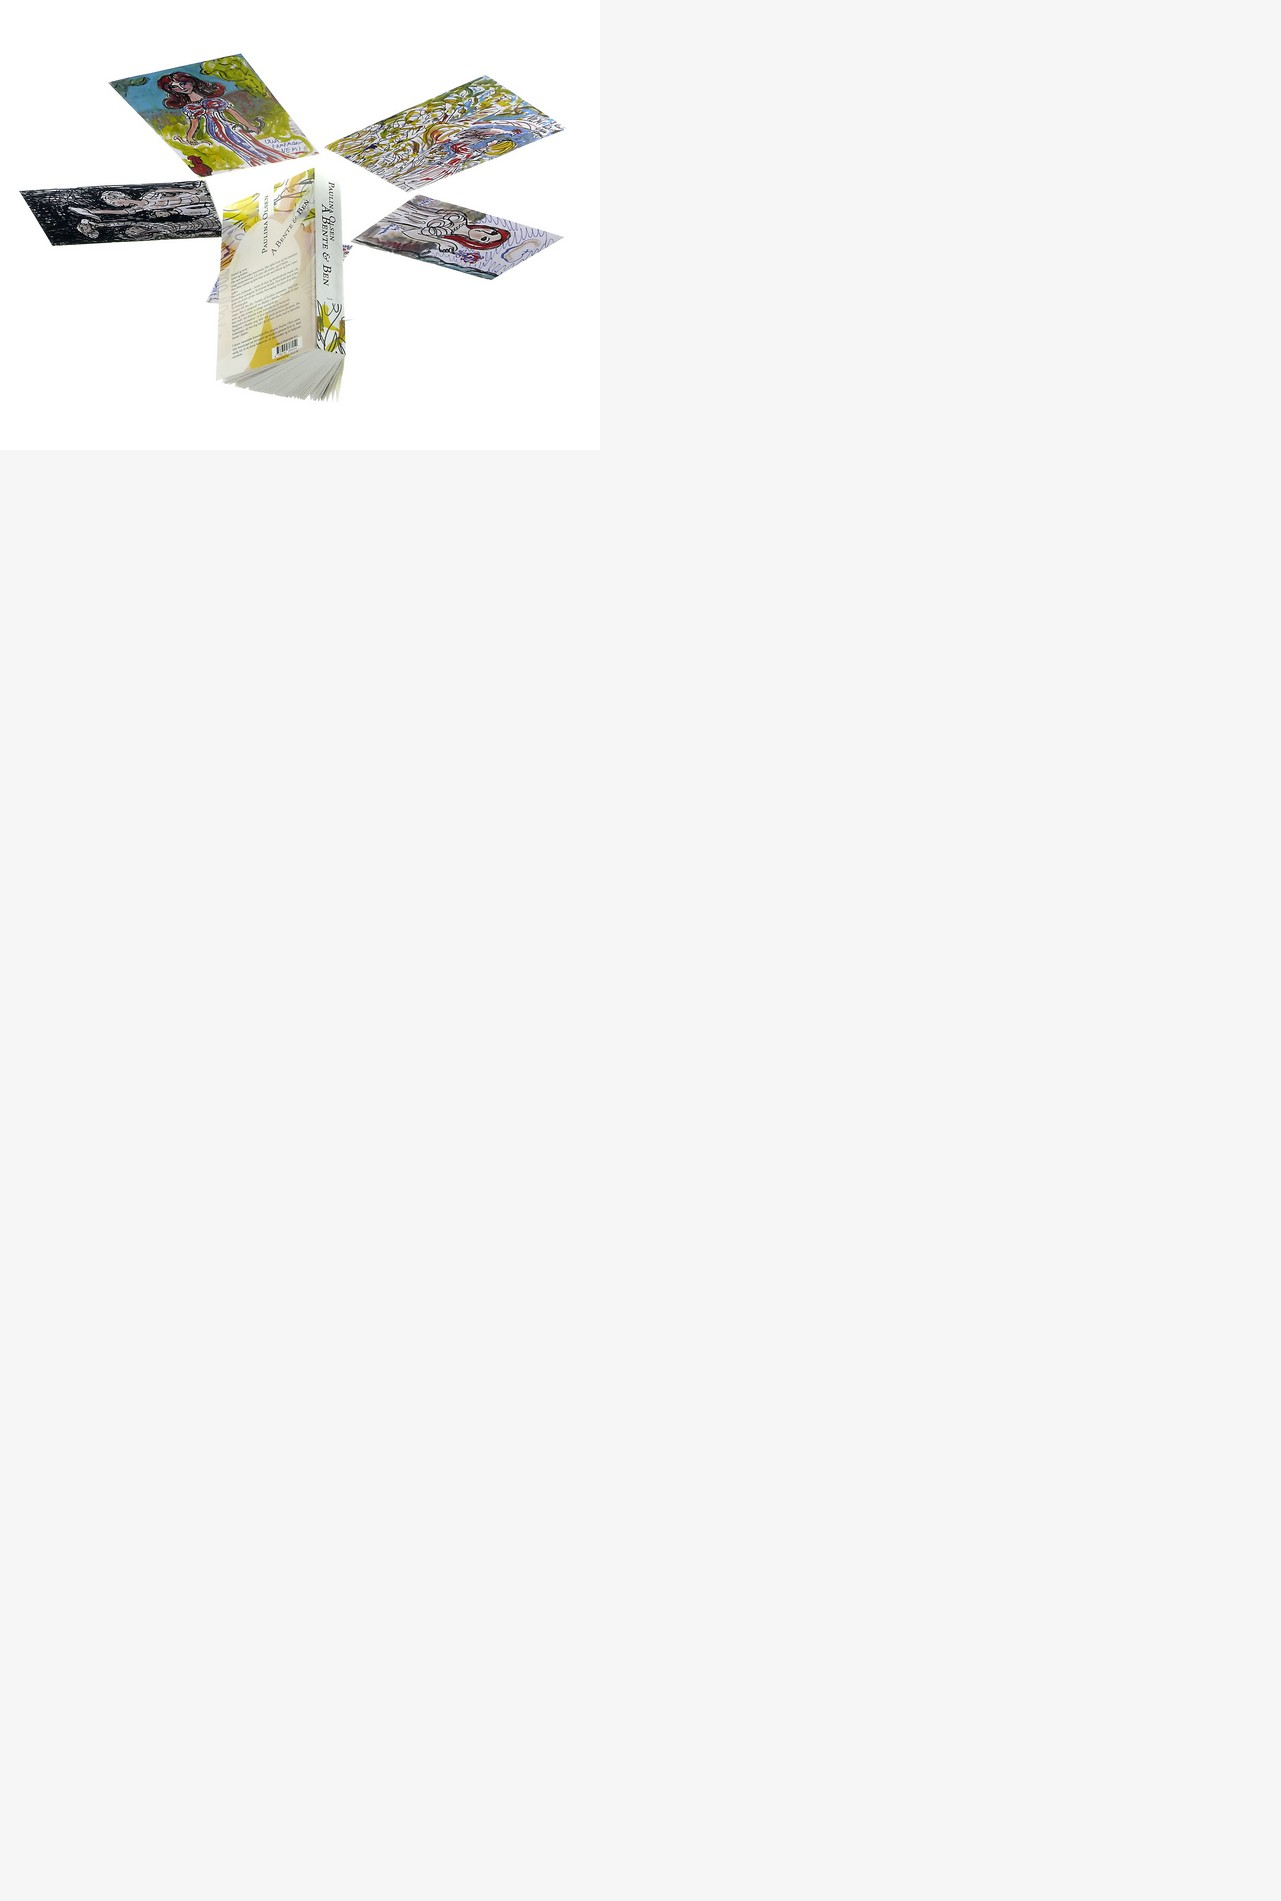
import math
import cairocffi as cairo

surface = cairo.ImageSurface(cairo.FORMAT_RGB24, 1281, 1901)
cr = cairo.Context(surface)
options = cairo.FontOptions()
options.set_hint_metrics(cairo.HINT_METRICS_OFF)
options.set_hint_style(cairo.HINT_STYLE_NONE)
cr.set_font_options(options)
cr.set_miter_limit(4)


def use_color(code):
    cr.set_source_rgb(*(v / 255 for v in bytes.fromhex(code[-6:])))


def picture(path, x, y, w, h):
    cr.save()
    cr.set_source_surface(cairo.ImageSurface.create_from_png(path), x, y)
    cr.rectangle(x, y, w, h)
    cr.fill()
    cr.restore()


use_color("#f6f6f6")
cr.paint()
use_color("#ffffff")
cr.rectangle(0, 0, 600, 450)
cr.fill()
picture("img1.png", 16, 48, 552, 358)
surface.write_to_png("result.png")
